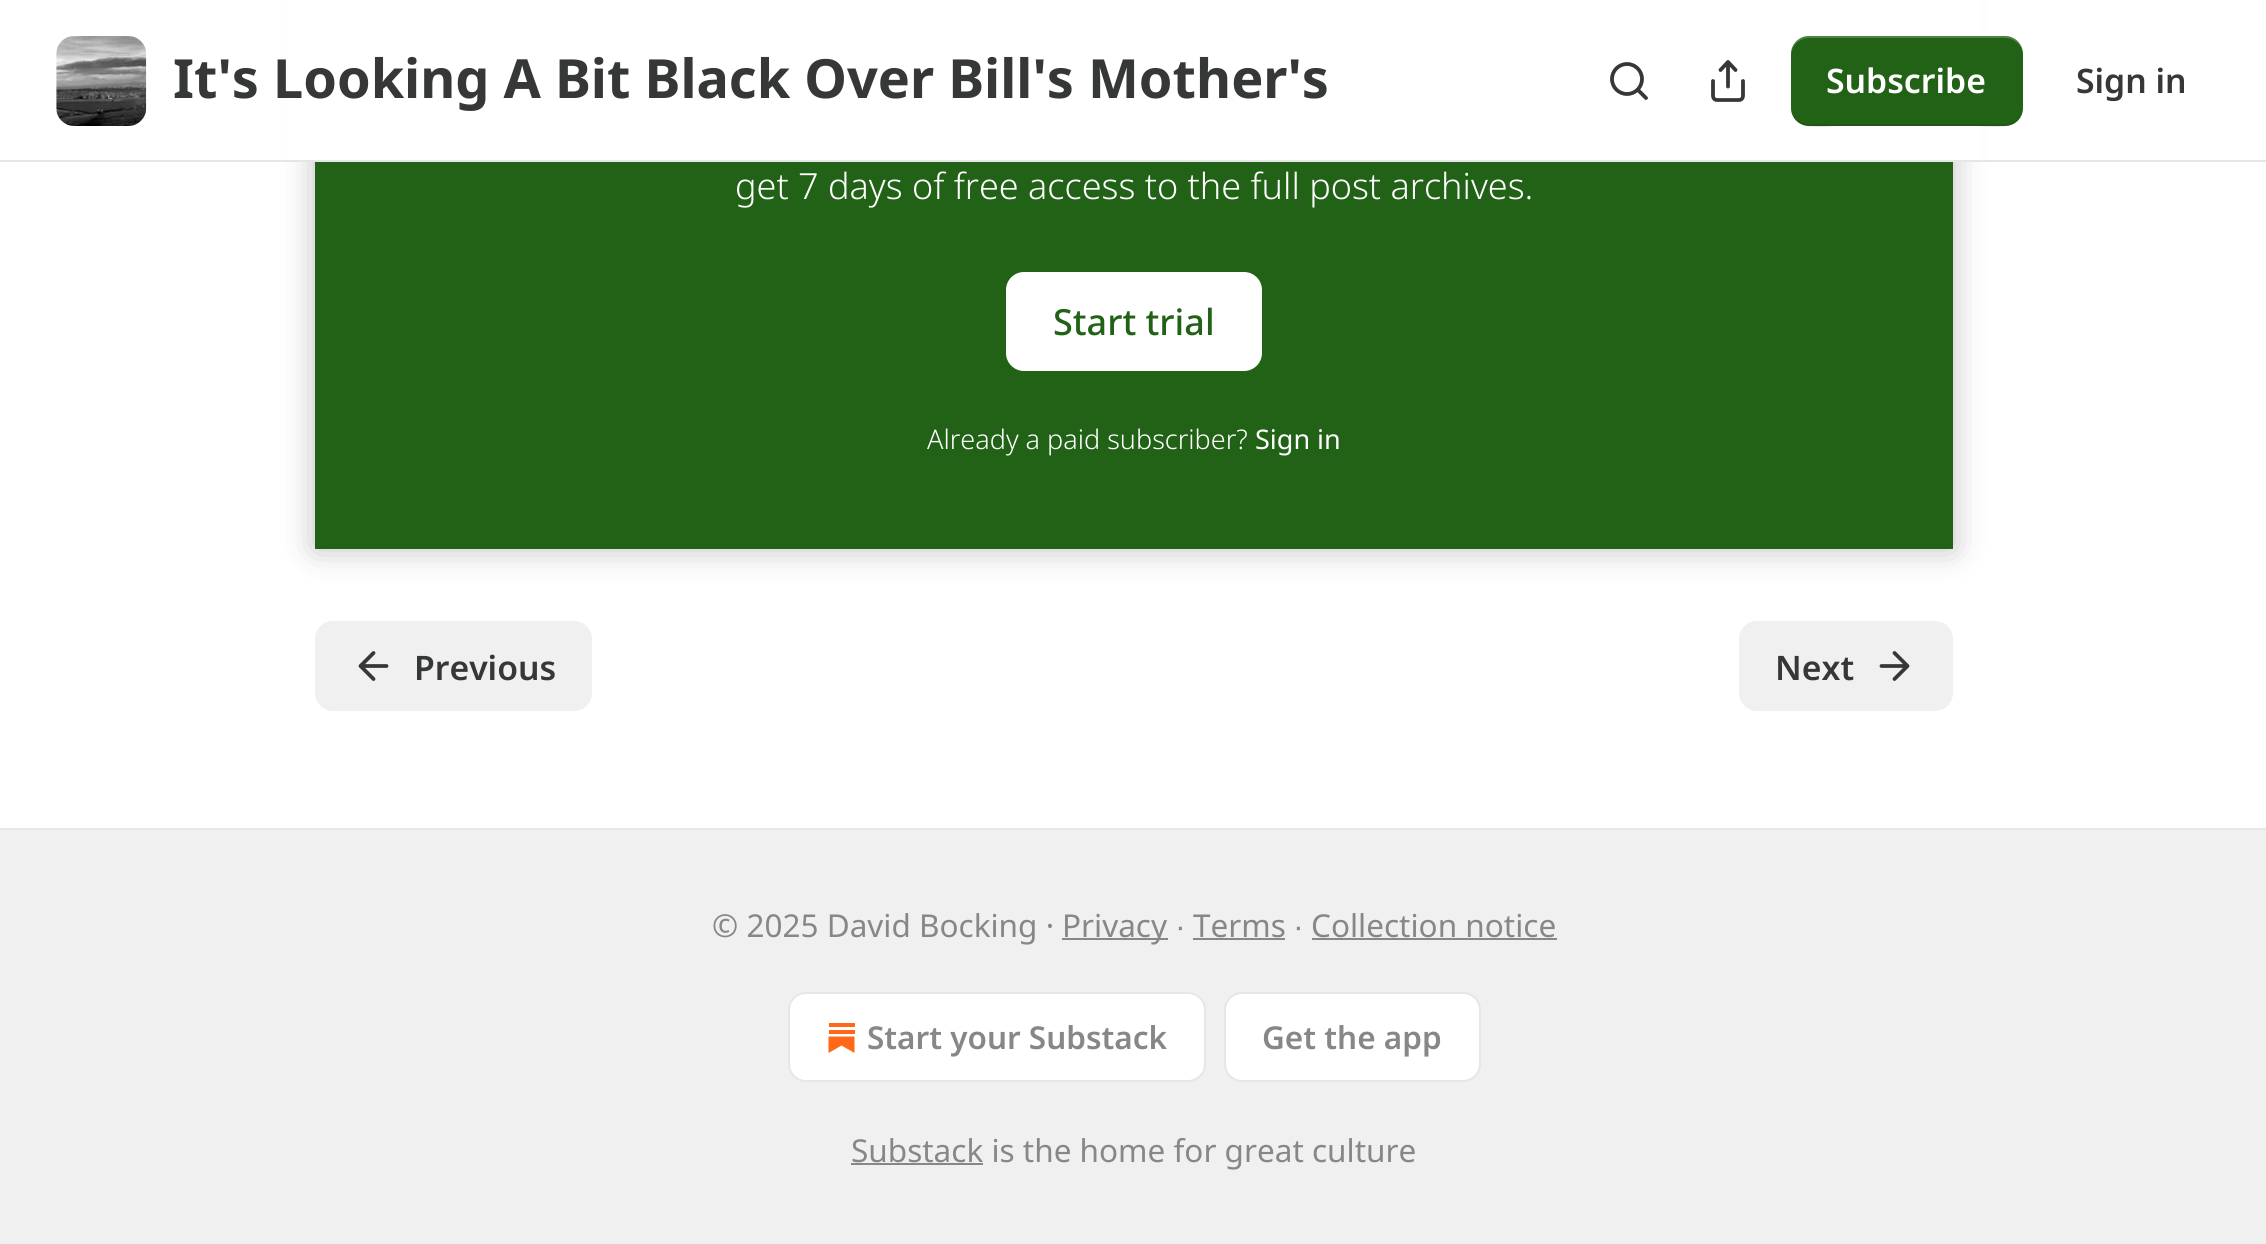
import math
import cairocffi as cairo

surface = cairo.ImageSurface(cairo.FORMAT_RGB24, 2266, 1244)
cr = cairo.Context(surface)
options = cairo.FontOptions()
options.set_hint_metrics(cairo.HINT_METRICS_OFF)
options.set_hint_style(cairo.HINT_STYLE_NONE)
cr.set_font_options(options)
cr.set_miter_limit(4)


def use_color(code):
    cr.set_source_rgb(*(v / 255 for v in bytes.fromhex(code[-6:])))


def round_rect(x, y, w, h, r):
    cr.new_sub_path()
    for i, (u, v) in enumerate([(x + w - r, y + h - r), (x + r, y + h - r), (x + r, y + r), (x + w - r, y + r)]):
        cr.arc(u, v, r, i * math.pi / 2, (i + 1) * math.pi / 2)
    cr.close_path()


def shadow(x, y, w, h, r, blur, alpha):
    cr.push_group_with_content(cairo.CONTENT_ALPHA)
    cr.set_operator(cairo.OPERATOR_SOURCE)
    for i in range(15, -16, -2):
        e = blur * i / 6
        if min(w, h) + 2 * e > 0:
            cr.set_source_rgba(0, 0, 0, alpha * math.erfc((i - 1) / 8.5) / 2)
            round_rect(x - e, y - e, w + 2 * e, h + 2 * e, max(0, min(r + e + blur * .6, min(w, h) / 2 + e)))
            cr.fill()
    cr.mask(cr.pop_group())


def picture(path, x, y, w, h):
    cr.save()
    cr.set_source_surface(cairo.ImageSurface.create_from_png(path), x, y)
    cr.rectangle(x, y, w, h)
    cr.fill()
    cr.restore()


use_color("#ffffff")
cr.paint()
use_color("#226216")
cr.rectangle(315, 162, 1638, 387)
cr.fill()
use_color("#ffffff")
round_rect(1007, 273, 254, 97, 17)
cr.fill_preserve()
cr.stroke()
cr.save()
cr.set_fill_rule(cairo.FILL_RULE_EVEN_ODD)
cr.new_path()
cr.move_to(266, 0)
cr.line_to(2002, 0)
cr.line_to(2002, 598)
cr.line_to(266, 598)
cr.close_path()
cr.move_to(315, -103)
cr.line_to(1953, -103)
cr.line_to(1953, 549)
cr.line_to(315, 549)
cr.close_path()
cr.clip()
use_color("#000000")
shadow(315, -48, 1638, 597, 0, 16, 0.25)
cr.restore()
cr.rectangle(287, 0, 1694, 160)
cr.fill()
use_color("#e6e6e6")
cr.rectangle(0, 160, 2266, 2)
cr.fill()
picture("img1.png", 56, 36, 91, 90)
cr.select_font_face("Noto Sans", cairo.FONT_SLANT_NORMAL, cairo.FONT_WEIGHT_BOLD)
cr.set_font_size(54)
use_color("#363737")
cr.move_to(173, 98)
cr.show_text("It's Looking A Bit Black Over Bill's Mother's")
cr.new_path()
cr.arc(1627, 79, 15, 0, 2 * math.pi)
cr.set_line_width(3.8)
cr.stroke()
cr.new_path()
cr.move_to(1646, 98)
cr.line_to(1638, 90)
cr.set_line_cap(cairo.LINE_CAP_ROUND)
cr.set_line_join(cairo.LINE_JOIN_ROUND)
cr.stroke()
cr.new_path()
cr.move_to(1713, 81)
cr.line_to(1713, 96)
cr.curve_to(1713, 98, 1714.5, 100, 1717, 100)
cr.line_to(1739, 100)
cr.curve_to(1741.5, 100, 1743, 98, 1743, 96)
cr.line_to(1743, 81)
cr.move_to(1735.5, 70)
cr.line_to(1728, 62)
cr.line_to(1720.5, 70)
cr.move_to(1728, 62)
cr.line_to(1728, 86.5)
cr.stroke()
use_color("#226216")
round_rect(1791, 36, 232, 90, 18)
cr.fill()
cr.set_source_rgba(0, 0, 0, 0.1)
cr.new_path()
cr.move_to(1791, 106)
cr.curve_to(1791, 134, 1824, 126, 1842, 126)
cr.line_to(1972, 126)
cr.curve_to(1990, 126, 2023, 134, 2023, 106)
cr.curve_to(2023, 116, 2015, 124, 2005, 124)
cr.line_to(1809, 124)
cr.curve_to(1799, 124, 1791, 116, 1791, 106)
cr.close_path()
cr.fill()
cr.set_source_rgba(1, 1, 1, 0.2)
cr.new_path()
cr.move_to(1809, 38)
cr.line_to(2005, 38)
cr.curve_to(2015, 38, 2023, 46, 2023, 56)
cr.curve_to(2023, 28, 1990, 36, 1972, 36)
cr.line_to(1842, 36)
cr.curve_to(1824, 36, 1791, 28, 1791, 56)
cr.curve_to(1791, 46, 1799, 38, 1809, 38)
cr.close_path()
cr.fill()
cr.select_font_face("Noto Sans SemiBold")
cr.set_font_size(33.75)
use_color("#ffffff")
cr.move_to(1826, 93)
cr.show_text("Subscribe")
use_color("#363737")
cr.move_to(2076, 93)
cr.show_text("Sign in")
cr.select_font_face("Noto Sans Light")
cr.set_font_size(36)
use_color("#ffffff")
cr.move_to(735, 199)
cr.show_text("get 7 days of free access to the full post archives.")
cr.select_font_face("Noto Sans Medium")
use_color("#226216")
cr.move_to(1053, 335)
cr.show_text("Start trial")
cr.select_font_face("Noto Sans Light")
cr.set_font_size(27)
use_color("#ffffff")
cr.move_to(927, 449)
cr.show_text("Already a paid subscriber?")
cr.select_font_face("Noto Sans")
cr.move_to(1255, 449)
cr.show_text("Sign in")
use_color("#f0f0f0")
round_rect(315, 621, 277, 90, 18)
cr.fill()
cr.new_path()
cr.move_to(373.5, 679)
cr.line_to(360.5, 666)
cr.line_to(373.5, 653)
cr.move_to(386.5, 666)
cr.line_to(360.5, 666)
use_color("#363737")
cr.stroke()
cr.select_font_face("Noto Sans SemiBold")
cr.set_font_size(33.75)
cr.move_to(414, 680)
cr.show_text("Previous")
use_color("#f0f0f0")
round_rect(1739, 621, 214, 90, 18)
cr.fill()
use_color("#363737")
cr.move_to(1775, 680)
cr.show_text("Next")
cr.new_path()
cr.move_to(1881.5, 666)
cr.line_to(1907.5, 666)
cr.move_to(1894.5, 653)
cr.line_to(1907.5, 666)
cr.line_to(1894.5, 679)
cr.stroke()
use_color("#f0f0f0")
cr.rectangle(0, 830, 2266, 414)
cr.fill()
use_color("#e6e6e6")
cr.rectangle(0, 828, 2266, 2)
cr.fill()
cr.select_font_face("Noto Sans")
cr.set_font_size(31.5)
use_color("#868787")
cr.move_to(712, 937)
cr.show_text("© 2025 David Bocking ·")
cr.rectangle(1062, 938, 106, 2)
cr.fill()
cr.move_to(1062, 937)
cr.show_text("Privacy")
cr.select_font_face("Liberation Sans")
cr.move_to(1176, 937)
cr.show_text("∙")
cr.select_font_face("Noto Sans")
cr.move_to(1193, 937)
cr.show_text("Terms")
cr.rectangle(1193, 938, 92, 2)
cr.fill()
cr.select_font_face("Liberation Sans")
cr.move_to(1294, 937)
cr.show_text("∙")
cr.select_font_face("Noto Sans")
cr.move_to(1311, 937)
cr.show_text("Collection notice")
cr.rectangle(1312, 938, 245, 2)
cr.fill()
use_color("#ffffff")
round_rect(789, 993, 416, 88, 17)
cr.fill_preserve()
use_color("#e6e6e6")
cr.set_line_width(2)
cr.set_line_cap(cairo.LINE_CAP_BUTT)
cr.set_line_join(cairo.LINE_JOIN_MITER)
cr.stroke()
use_color("#ff6719")
cr.rectangle(829, 1030, 26, 4)
cr.fill()
cr.new_path()
cr.move_to(828.5, 1036.5)
cr.line_to(828.5, 1053)
cr.line_to(841.5, 1045.5)
cr.line_to(854.5, 1053)
cr.line_to(854.5, 1036.5)
cr.close_path()
cr.fill()
cr.rectangle(829, 1023, 26, 4)
cr.fill()
cr.select_font_face("Noto Sans SemiBold")
use_color("#868787")
cr.move_to(867, 1049)
cr.show_text("Start your Substack")
use_color("#ffffff")
round_rect(1225, 993, 255, 88, 17)
cr.fill_preserve()
use_color("#e6e6e6")
cr.stroke()
use_color("#868787")
cr.move_to(1262, 1049)
cr.show_text("Get the app")
cr.rectangle(851, 1163, 132, 2)
cr.fill()
cr.select_font_face("Noto Sans")
cr.move_to(851, 1162)
cr.show_text("Substack is the home for great culture")
surface.write_to_png("result.png")
